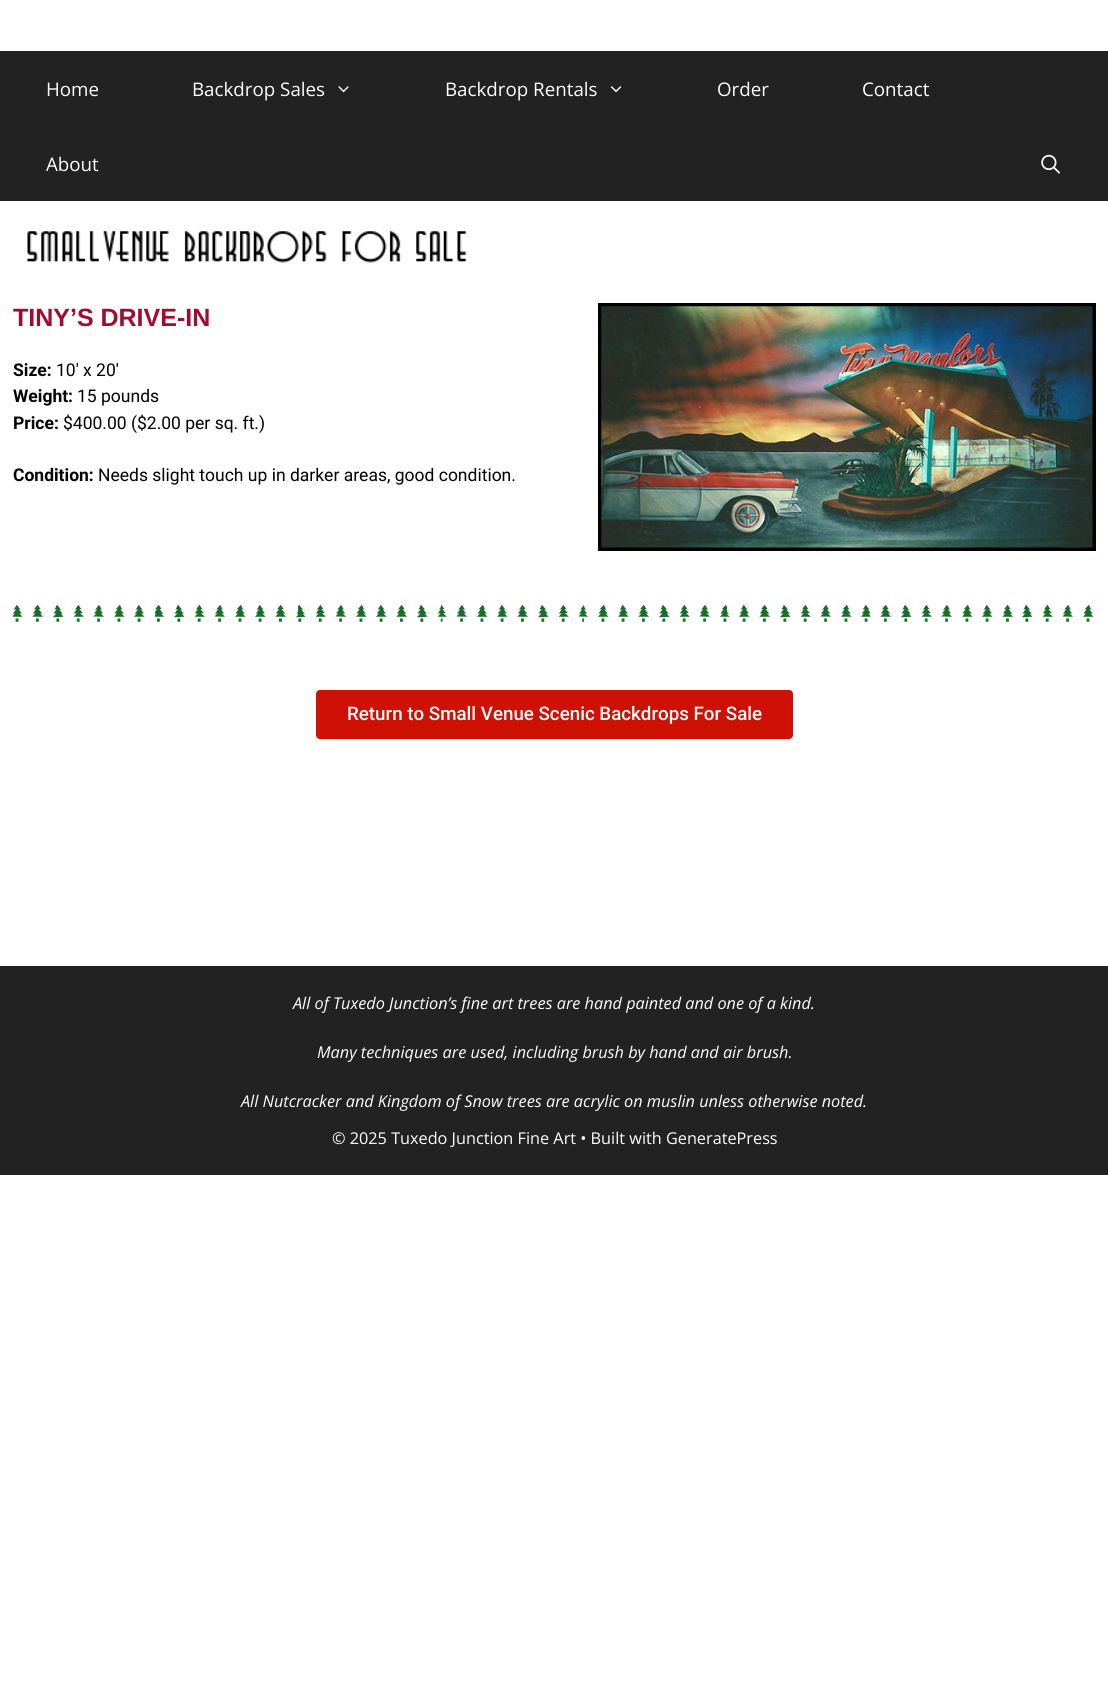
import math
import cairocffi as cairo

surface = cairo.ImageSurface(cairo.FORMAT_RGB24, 1108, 1695)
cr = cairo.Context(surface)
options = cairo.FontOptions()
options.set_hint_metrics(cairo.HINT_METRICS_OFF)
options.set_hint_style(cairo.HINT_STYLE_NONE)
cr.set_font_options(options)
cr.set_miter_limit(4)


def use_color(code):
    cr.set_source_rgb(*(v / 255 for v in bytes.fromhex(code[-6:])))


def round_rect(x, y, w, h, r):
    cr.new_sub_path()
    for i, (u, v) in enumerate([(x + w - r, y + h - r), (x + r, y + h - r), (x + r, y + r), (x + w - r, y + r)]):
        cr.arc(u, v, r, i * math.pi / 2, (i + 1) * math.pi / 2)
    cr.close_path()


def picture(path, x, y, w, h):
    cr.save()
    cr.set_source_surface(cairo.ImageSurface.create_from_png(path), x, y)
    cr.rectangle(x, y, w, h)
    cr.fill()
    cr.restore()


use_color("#ffffff")
cr.paint()
use_color("#222222")
cr.rectangle(0, 51, 1108, 150)
cr.fill()
cr.select_font_face("Open Sans")
cr.set_font_size(18.75)
use_color("#ffffff")
cr.move_to(46, 96)
cr.show_text("Home")
cr.move_to(192, 96)
cr.show_text("Backdrop Sales")
picture("img1.png", 338, 86, 11, 7)
cr.move_to(445, 96)
cr.show_text("Backdrop Rentals")
picture("img2.png", 610, 86, 12, 7)
cr.move_to(717, 96)
cr.show_text("Order")
cr.move_to(862, 96)
cr.show_text("Contact")
cr.move_to(46, 171)
cr.show_text("About")
picture("img3.png", 1041, 154, 19, 20)
picture("img4.png", 27, 231, 440, 32)
cr.select_font_face("Liberation Sans", cairo.FONT_SLANT_NORMAL, cairo.FONT_WEIGHT_BOLD)
cr.set_font_size(25)
use_color("#9e0c2e")
cr.move_to(13, 326)
cr.show_text("TINY’S DRIVE-IN")
cr.select_font_face("Roboto", cairo.FONT_SLANT_NORMAL, cairo.FONT_WEIGHT_BOLD)
cr.set_font_size(17.5)
use_color("#000000")
cr.move_to(13, 376)
cr.show_text("Size:")
cr.select_font_face("Roboto")
cr.move_to(56, 376)
cr.show_text("10′ x 20′")
cr.select_font_face("Roboto", cairo.FONT_SLANT_NORMAL, cairo.FONT_WEIGHT_BOLD)
cr.move_to(13, 402)
cr.show_text("Weight:")
cr.select_font_face("Roboto")
cr.move_to(77, 402)
cr.show_text("15 pounds")
cr.select_font_face("Roboto", cairo.FONT_SLANT_NORMAL, cairo.FONT_WEIGHT_BOLD)
cr.move_to(13, 429)
cr.show_text("Price:")
cr.select_font_face("Roboto")
cr.move_to(63, 429)
cr.show_text("$400.00 ($2.00 per sq. ft.)")
cr.select_font_face("Roboto", cairo.FONT_SLANT_NORMAL, cairo.FONT_WEIGHT_BOLD)
cr.move_to(13, 481)
cr.show_text("Condition:")
cr.select_font_face("Roboto")
cr.move_to(98, 481)
cr.show_text("Needs slight touch up in darker areas, good condition.")
cr.rectangle(600, 305, 494, 244)
cr.set_line_width(4)
cr.stroke()
picture("img5.png", 601, 306, 492, 242)
picture("img6.png", 12, 604, 1082, 18)
use_color("#ce1104")
round_rect(316, 690, 477, 49, 4)
cr.fill()
cr.select_font_face("Roboto Medium")
cr.set_font_size(18.75)
use_color("#ffffff")
cr.move_to(347, 720)
cr.show_text("Return to Small Venue Scenic Backdrops For Sale")
use_color("#222222")
cr.rectangle(0, 966, 1108, 209)
cr.fill()
cr.select_font_face("Open Sans", cairo.FONT_SLANT_ITALIC)
cr.set_font_size(16.25)
use_color("#ffffff")
cr.move_to(293, 1009)
cr.show_text("All of Tuxedo Junction’s fine art trees are hand painted and one of a kind.")
cr.move_to(317, 1058)
cr.show_text("Many techniques are used, including brush by hand and air brush.")
cr.move_to(241, 1107)
cr.show_text("All Nutcracker and Kingdom of Snow trees are acrylic on muslin unless otherwise noted.")
cr.select_font_face("Open Sans")
cr.move_to(332, 1144)
cr.show_text("© 2025 Tuxedo Junction Fine Art • Built with GeneratePress")
surface.write_to_png("result.png")
